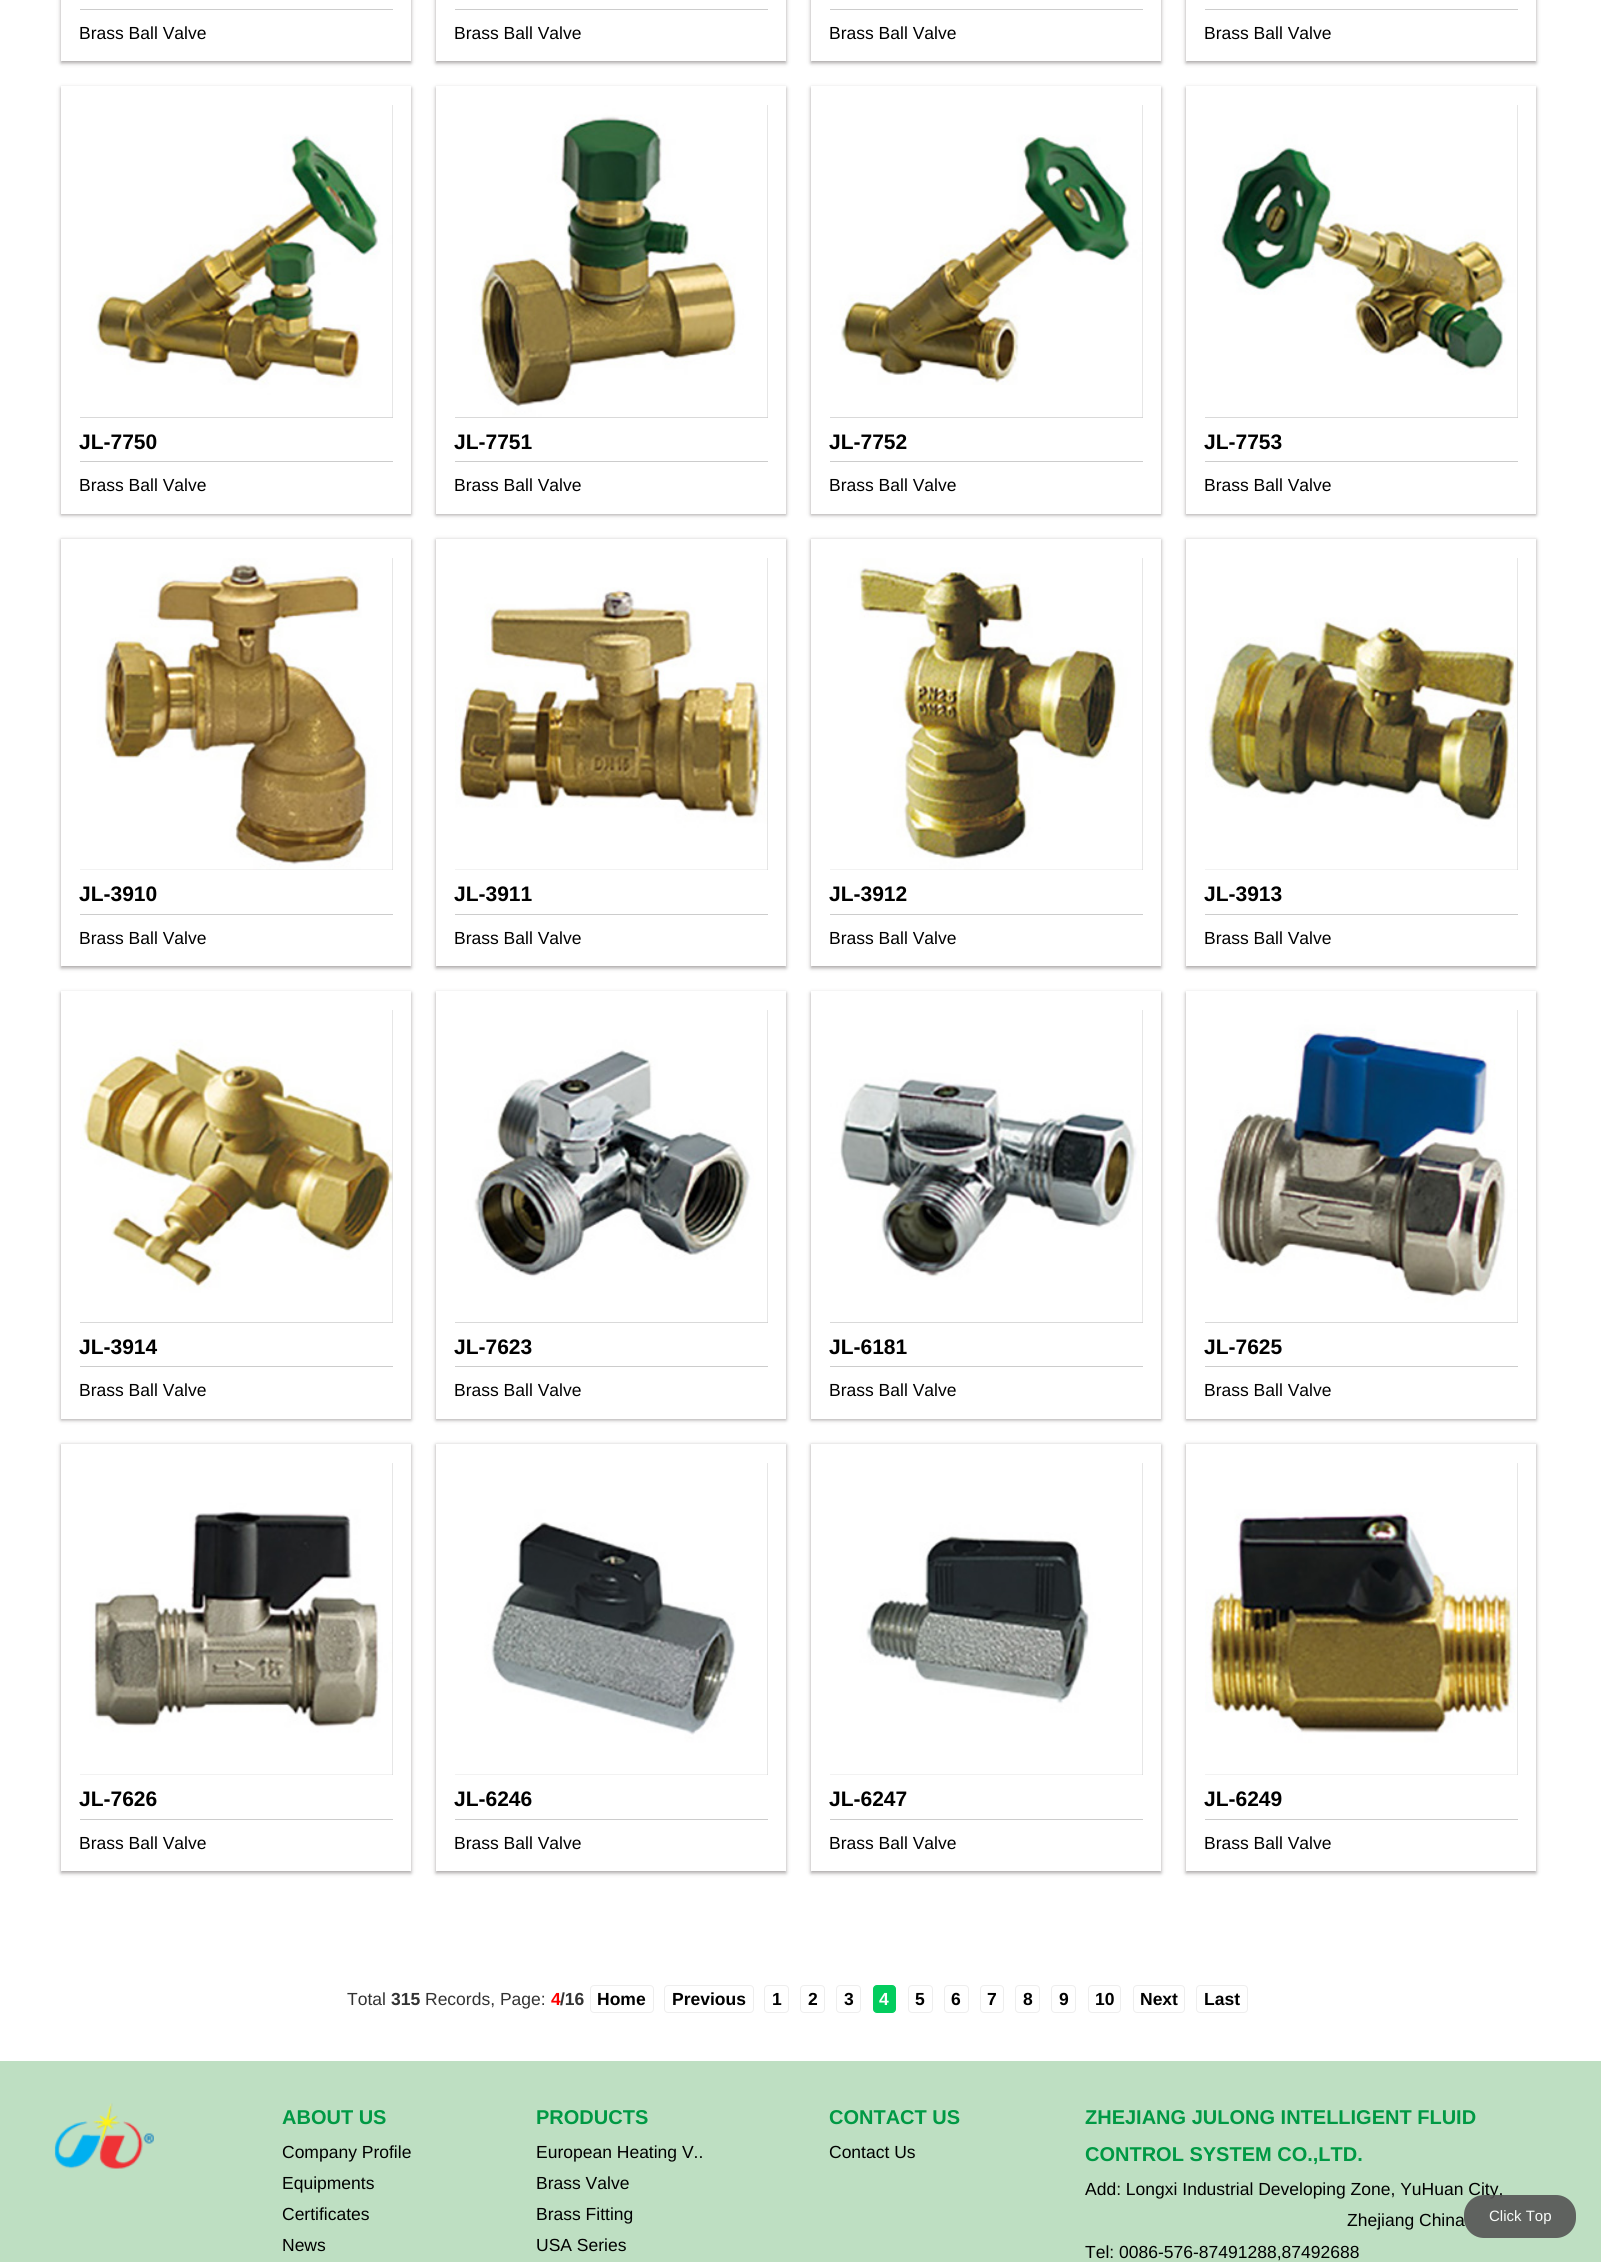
import math
import cairocffi as cairo

surface = cairo.ImageSurface(cairo.FORMAT_RGB24, 1601, 2262)
cr = cairo.Context(surface)
options = cairo.FontOptions()
options.set_hint_metrics(cairo.HINT_METRICS_OFF)
options.set_hint_style(cairo.HINT_STYLE_NONE)
cr.set_font_options(options)
cr.set_miter_limit(4)


def use_color(code):
    cr.set_source_rgb(*(v / 255 for v in bytes.fromhex(code[-6:])))


def round_rect(x, y, w, h, r):
    cr.new_sub_path()
    for i, (u, v) in enumerate([(x + w - r, y + h - r), (x + r, y + h - r), (x + r, y + r), (x + w - r, y + r)]):
        cr.arc(u, v, r, i * math.pi / 2, (i + 1) * math.pi / 2)
    cr.close_path()


def shadow(x, y, w, h, r, blur, alpha):
    cr.push_group_with_content(cairo.CONTENT_ALPHA)
    cr.set_operator(cairo.OPERATOR_SOURCE)
    for i in range(15, -16, -2):
        e = blur * i / 6
        if min(w, h) + 2 * e > 0:
            cr.set_source_rgba(0, 0, 0, alpha * math.erfc((i - 1) / 8.5) / 2)
            round_rect(x - e, y - e, w + 2 * e, h + 2 * e, max(0, min(r + e + blur * .6, min(w, h) / 2 + e)))
            cr.fill()
    cr.mask(cr.pop_group())


def picture(path, x, y, w, h):
    cr.save()
    cr.set_source_surface(cairo.ImageSurface.create_from_png(path), x, y)
    cr.rectangle(x, y, w, h)
    cr.fill()
    cr.restore()


use_color("#ffffff")
cr.paint()
use_color("#221919")
shadow(61, -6, 350, 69, 0, 2, 0.4)
use_color("#ffffff")
cr.rectangle(61, 0, 350, 61)
cr.fill()
use_color("#cccccc")
cr.rectangle(80, 9, 313, 1)
cr.fill()
cr.select_font_face("Liberation Sans")
cr.set_font_size(17.5)
use_color("#000000")
cr.move_to(79, 39)
cr.show_text("Brass Ball Valve")
use_color("#221919")
shadow(436, -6, 350, 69, 0, 2, 0.4)
use_color("#ffffff")
cr.rectangle(436, 0, 350, 61)
cr.fill()
use_color("#cccccc")
cr.rectangle(455, 9, 313, 1)
cr.fill()
use_color("#000000")
cr.move_to(454, 39)
cr.show_text("Brass Ball Valve")
use_color("#221919")
shadow(811, -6, 350, 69, 0, 2, 0.4)
use_color("#ffffff")
cr.rectangle(811, 0, 350, 61)
cr.fill()
use_color("#cccccc")
cr.rectangle(830, 9, 313, 1)
cr.fill()
use_color("#000000")
cr.move_to(829, 39)
cr.show_text("Brass Ball Valve")
use_color("#221919")
shadow(1186, -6, 350, 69, 0, 2, 0.4)
use_color("#ffffff")
cr.rectangle(1186, 0, 350, 61)
cr.fill()
use_color("#cccccc")
cr.rectangle(1205, 9, 313, 1)
cr.fill()
use_color("#000000")
cr.move_to(1204, 39)
cr.show_text("Brass Ball Valve")
use_color("#221919")
shadow(61, 88, 350, 427, 0, 2, 0.4)
use_color("#ffffff")
cr.rectangle(61, 86, 350, 428)
cr.fill()
use_color("#cccccc")
cr.rectangle(80, 105, 313, 313)
cr.fill()
picture("img1.png", 80, 105, 313, 313)
cr.rectangle(80, 461, 313, 1)
cr.fill()
cr.select_font_face("Liberation Sans", cairo.FONT_SLANT_NORMAL, cairo.FONT_WEIGHT_BOLD)
cr.set_font_size(21)
use_color("#000000")
cr.move_to(79, 449)
cr.show_text("JL-7750")
cr.select_font_face("Liberation Sans")
cr.set_font_size(17.5)
cr.move_to(79, 491)
cr.show_text("Brass Ball Valve")
use_color("#221919")
shadow(436, 88, 350, 427, 0, 2, 0.4)
use_color("#ffffff")
cr.rectangle(436, 86, 350, 428)
cr.fill()
use_color("#cccccc")
cr.rectangle(455, 105, 313, 313)
cr.fill()
picture("img2.png", 455, 105, 313, 313)
cr.rectangle(455, 461, 313, 1)
cr.fill()
cr.select_font_face("Liberation Sans", cairo.FONT_SLANT_NORMAL, cairo.FONT_WEIGHT_BOLD)
cr.set_font_size(21)
use_color("#000000")
cr.move_to(454, 449)
cr.show_text("JL-7751")
cr.select_font_face("Liberation Sans")
cr.set_font_size(17.5)
cr.move_to(454, 491)
cr.show_text("Brass Ball Valve")
use_color("#221919")
shadow(811, 88, 350, 427, 0, 2, 0.4)
use_color("#ffffff")
cr.rectangle(811, 86, 350, 428)
cr.fill()
use_color("#cccccc")
cr.rectangle(830, 105, 313, 313)
cr.fill()
picture("img3.png", 830, 105, 313, 313)
cr.rectangle(830, 461, 313, 1)
cr.fill()
cr.select_font_face("Liberation Sans", cairo.FONT_SLANT_NORMAL, cairo.FONT_WEIGHT_BOLD)
cr.set_font_size(21)
use_color("#000000")
cr.move_to(829, 449)
cr.show_text("JL-7752")
cr.select_font_face("Liberation Sans")
cr.set_font_size(17.5)
cr.move_to(829, 491)
cr.show_text("Brass Ball Valve")
use_color("#221919")
shadow(1186, 88, 350, 427, 0, 2, 0.4)
use_color("#ffffff")
cr.rectangle(1186, 86, 350, 428)
cr.fill()
use_color("#cccccc")
cr.rectangle(1205, 105, 313, 313)
cr.fill()
picture("img4.png", 1205, 105, 313, 313)
cr.rectangle(1205, 461, 313, 1)
cr.fill()
cr.select_font_face("Liberation Sans", cairo.FONT_SLANT_NORMAL, cairo.FONT_WEIGHT_BOLD)
cr.set_font_size(21)
use_color("#000000")
cr.move_to(1204, 449)
cr.show_text("JL-7753")
cr.select_font_face("Liberation Sans")
cr.set_font_size(17.5)
cr.move_to(1204, 491)
cr.show_text("Brass Ball Valve")
use_color("#221919")
shadow(61, 540, 350, 428, 0, 2, 0.4)
use_color("#ffffff")
cr.rectangle(61, 539, 350, 427)
cr.fill()
use_color("#cccccc")
cr.rectangle(80, 558, 313, 312)
cr.fill()
picture("img5.png", 80, 558, 313, 312)
cr.rectangle(80, 914, 313, 1)
cr.fill()
cr.select_font_face("Liberation Sans", cairo.FONT_SLANT_NORMAL, cairo.FONT_WEIGHT_BOLD)
cr.set_font_size(21)
use_color("#000000")
cr.move_to(79, 901)
cr.show_text("JL-3910")
cr.select_font_face("Liberation Sans")
cr.set_font_size(17.5)
cr.move_to(79, 944)
cr.show_text("Brass Ball Valve")
use_color("#221919")
shadow(436, 540, 350, 428, 0, 2, 0.4)
use_color("#ffffff")
cr.rectangle(436, 539, 350, 427)
cr.fill()
use_color("#cccccc")
cr.rectangle(455, 558, 313, 312)
cr.fill()
picture("img6.png", 455, 558, 313, 312)
cr.rectangle(455, 914, 313, 1)
cr.fill()
cr.select_font_face("Liberation Sans", cairo.FONT_SLANT_NORMAL, cairo.FONT_WEIGHT_BOLD)
cr.set_font_size(21)
use_color("#000000")
cr.move_to(454, 901)
cr.show_text("JL-3911")
cr.select_font_face("Liberation Sans")
cr.set_font_size(17.5)
cr.move_to(454, 944)
cr.show_text("Brass Ball Valve")
use_color("#221919")
shadow(811, 540, 350, 428, 0, 2, 0.4)
use_color("#ffffff")
cr.rectangle(811, 539, 350, 427)
cr.fill()
use_color("#cccccc")
cr.rectangle(830, 558, 313, 312)
cr.fill()
picture("img7.png", 830, 558, 313, 312)
cr.rectangle(830, 914, 313, 1)
cr.fill()
cr.select_font_face("Liberation Sans", cairo.FONT_SLANT_NORMAL, cairo.FONT_WEIGHT_BOLD)
cr.set_font_size(21)
use_color("#000000")
cr.move_to(829, 901)
cr.show_text("JL-3912")
cr.select_font_face("Liberation Sans")
cr.set_font_size(17.5)
cr.move_to(829, 944)
cr.show_text("Brass Ball Valve")
use_color("#221919")
shadow(1186, 540, 350, 428, 0, 2, 0.4)
use_color("#ffffff")
cr.rectangle(1186, 539, 350, 427)
cr.fill()
use_color("#cccccc")
cr.rectangle(1205, 558, 313, 312)
cr.fill()
picture("img8.png", 1205, 558, 313, 312)
cr.rectangle(1205, 914, 313, 1)
cr.fill()
cr.select_font_face("Liberation Sans", cairo.FONT_SLANT_NORMAL, cairo.FONT_WEIGHT_BOLD)
cr.set_font_size(21)
use_color("#000000")
cr.move_to(1204, 901)
cr.show_text("JL-3913")
cr.select_font_face("Liberation Sans")
cr.set_font_size(17.5)
cr.move_to(1204, 944)
cr.show_text("Brass Ball Valve")
use_color("#221919")
shadow(61, 993, 350, 427, 0, 2, 0.4)
use_color("#ffffff")
cr.rectangle(61, 991, 350, 428)
cr.fill()
use_color("#cccccc")
cr.rectangle(80, 1010, 313, 313)
cr.fill()
picture("img9.png", 80, 1010, 313, 313)
cr.rectangle(80, 1366, 313, 1)
cr.fill()
cr.select_font_face("Liberation Sans", cairo.FONT_SLANT_NORMAL, cairo.FONT_WEIGHT_BOLD)
cr.set_font_size(21)
use_color("#000000")
cr.move_to(79, 1354)
cr.show_text("JL-3914")
cr.select_font_face("Liberation Sans")
cr.set_font_size(17.5)
cr.move_to(79, 1396)
cr.show_text("Brass Ball Valve")
use_color("#221919")
shadow(436, 993, 350, 427, 0, 2, 0.4)
use_color("#ffffff")
cr.rectangle(436, 991, 350, 428)
cr.fill()
use_color("#cccccc")
cr.rectangle(455, 1010, 313, 313)
cr.fill()
picture("img10.png", 455, 1010, 313, 313)
cr.rectangle(455, 1366, 313, 1)
cr.fill()
cr.select_font_face("Liberation Sans", cairo.FONT_SLANT_NORMAL, cairo.FONT_WEIGHT_BOLD)
cr.set_font_size(21)
use_color("#000000")
cr.move_to(454, 1354)
cr.show_text("JL-7623")
cr.select_font_face("Liberation Sans")
cr.set_font_size(17.5)
cr.move_to(454, 1396)
cr.show_text("Brass Ball Valve")
use_color("#221919")
shadow(811, 993, 350, 427, 0, 2, 0.4)
use_color("#ffffff")
cr.rectangle(811, 991, 350, 428)
cr.fill()
use_color("#cccccc")
cr.rectangle(830, 1010, 313, 313)
cr.fill()
picture("img11.png", 830, 1010, 313, 313)
cr.rectangle(830, 1366, 313, 1)
cr.fill()
cr.select_font_face("Liberation Sans", cairo.FONT_SLANT_NORMAL, cairo.FONT_WEIGHT_BOLD)
cr.set_font_size(21)
use_color("#000000")
cr.move_to(829, 1354)
cr.show_text("JL-6181")
cr.select_font_face("Liberation Sans")
cr.set_font_size(17.5)
cr.move_to(829, 1396)
cr.show_text("Brass Ball Valve")
use_color("#221919")
shadow(1186, 993, 350, 427, 0, 2, 0.4)
use_color("#ffffff")
cr.rectangle(1186, 991, 350, 428)
cr.fill()
use_color("#cccccc")
cr.rectangle(1205, 1010, 313, 313)
cr.fill()
picture("img12.png", 1205, 1010, 313, 313)
cr.rectangle(1205, 1366, 313, 1)
cr.fill()
cr.select_font_face("Liberation Sans", cairo.FONT_SLANT_NORMAL, cairo.FONT_WEIGHT_BOLD)
cr.set_font_size(21)
use_color("#000000")
cr.move_to(1204, 1354)
cr.show_text("JL-7625")
cr.select_font_face("Liberation Sans")
cr.set_font_size(17.5)
cr.move_to(1204, 1396)
cr.show_text("Brass Ball Valve")
use_color("#221919")
shadow(61, 1445, 350, 428, 0, 2, 0.4)
use_color("#ffffff")
cr.rectangle(61, 1444, 350, 427)
cr.fill()
use_color("#cccccc")
cr.rectangle(80, 1463, 313, 312)
cr.fill()
picture("img13.png", 80, 1463, 313, 312)
cr.rectangle(80, 1819, 313, 1)
cr.fill()
cr.select_font_face("Liberation Sans", cairo.FONT_SLANT_NORMAL, cairo.FONT_WEIGHT_BOLD)
cr.set_font_size(21)
use_color("#000000")
cr.move_to(79, 1806)
cr.show_text("JL-7626")
cr.select_font_face("Liberation Sans")
cr.set_font_size(17.5)
cr.move_to(79, 1849)
cr.show_text("Brass Ball Valve")
use_color("#221919")
shadow(436, 1445, 350, 428, 0, 2, 0.4)
use_color("#ffffff")
cr.rectangle(436, 1444, 350, 427)
cr.fill()
use_color("#cccccc")
cr.rectangle(455, 1463, 313, 312)
cr.fill()
picture("img14.png", 455, 1463, 313, 312)
cr.rectangle(455, 1819, 313, 1)
cr.fill()
cr.select_font_face("Liberation Sans", cairo.FONT_SLANT_NORMAL, cairo.FONT_WEIGHT_BOLD)
cr.set_font_size(21)
use_color("#000000")
cr.move_to(454, 1806)
cr.show_text("JL-6246")
cr.select_font_face("Liberation Sans")
cr.set_font_size(17.5)
cr.move_to(454, 1849)
cr.show_text("Brass Ball Valve")
use_color("#221919")
shadow(811, 1445, 350, 428, 0, 2, 0.4)
use_color("#ffffff")
cr.rectangle(811, 1444, 350, 427)
cr.fill()
use_color("#cccccc")
cr.rectangle(830, 1463, 313, 312)
cr.fill()
picture("img15.png", 830, 1463, 313, 312)
cr.rectangle(830, 1819, 313, 1)
cr.fill()
cr.select_font_face("Liberation Sans", cairo.FONT_SLANT_NORMAL, cairo.FONT_WEIGHT_BOLD)
cr.set_font_size(21)
use_color("#000000")
cr.move_to(829, 1806)
cr.show_text("JL-6247")
cr.select_font_face("Liberation Sans")
cr.set_font_size(17.5)
cr.move_to(829, 1849)
cr.show_text("Brass Ball Valve")
use_color("#221919")
shadow(1186, 1445, 350, 428, 0, 2, 0.4)
use_color("#ffffff")
cr.rectangle(1186, 1444, 350, 427)
cr.fill()
use_color("#cccccc")
cr.rectangle(1205, 1463, 313, 312)
cr.fill()
picture("img16.png", 1205, 1463, 313, 312)
cr.rectangle(1205, 1819, 313, 1)
cr.fill()
cr.select_font_face("Liberation Sans", cairo.FONT_SLANT_NORMAL, cairo.FONT_WEIGHT_BOLD)
cr.set_font_size(21)
use_color("#000000")
cr.move_to(1204, 1806)
cr.show_text("JL-6249")
cr.select_font_face("Liberation Sans")
cr.set_font_size(17.5)
cr.move_to(1204, 1849)
cr.show_text("Brass Ball Valve")
use_color("#333333")
cr.move_to(347, 2005)
cr.show_text("Total")
cr.select_font_face("Liberation Sans", cairo.FONT_SLANT_NORMAL, cairo.FONT_WEIGHT_BOLD)
cr.move_to(391, 2005)
cr.show_text("315")
cr.select_font_face("Liberation Sans")
cr.move_to(425, 2005)
cr.show_text("Records, Page:")
cr.select_font_face("Liberation Sans", cairo.FONT_SLANT_NORMAL, cairo.FONT_WEIGHT_BOLD)
use_color("#ff0000")
cr.move_to(551, 2005)
cr.show_text("4")
use_color("#333333")
cr.move_to(560, 2005)
cr.show_text("/16")
round_rect(590.5, 1985.5, 63, 27, 3.5)
use_color("#eeeeee")
cr.set_line_width(1)
cr.stroke()
use_color("#000000")
cr.move_to(597, 2005)
cr.show_text("Home")
round_rect(664.5, 1985.5, 89, 27, 3.5)
use_color("#eeeeee")
cr.stroke()
use_color("#000000")
cr.move_to(672, 2005)
cr.show_text("Previous")
round_rect(764.5, 1985.5, 24, 27, 3.5)
use_color("#eeeeee")
cr.stroke()
use_color("#000000")
cr.move_to(772, 2005)
cr.show_text("1")
round_rect(800.5, 1985.5, 24, 27, 3.5)
use_color("#eeeeee")
cr.stroke()
use_color("#000000")
cr.move_to(808, 2005)
cr.show_text("2")
round_rect(836.5, 1985.5, 24, 27, 3.5)
use_color("#eeeeee")
cr.stroke()
use_color("#000000")
cr.move_to(844, 2005)
cr.show_text("3")
use_color("#03cd5e")
round_rect(873.5, 1985.5, 22, 27, 3.5)
cr.fill_preserve()
cr.stroke()
use_color("#ffffff")
cr.move_to(879, 2005)
cr.show_text("4")
round_rect(908.5, 1985.5, 24, 27, 3.5)
use_color("#eeeeee")
cr.stroke()
use_color("#000000")
cr.move_to(915, 2005)
cr.show_text("5")
round_rect(944.5, 1985.5, 24, 27, 3.5)
use_color("#eeeeee")
cr.stroke()
use_color("#000000")
cr.move_to(951, 2005)
cr.show_text("6")
round_rect(980.5, 1985.5, 23, 27, 3.5)
use_color("#eeeeee")
cr.stroke()
use_color("#000000")
cr.move_to(987, 2005)
cr.show_text("7")
round_rect(1015.5, 1985.5, 24, 27, 3.5)
use_color("#eeeeee")
cr.stroke()
use_color("#000000")
cr.move_to(1023, 2005)
cr.show_text("8")
round_rect(1051.5, 1985.5, 24, 27, 3.5)
use_color("#eeeeee")
cr.stroke()
use_color("#000000")
cr.move_to(1059, 2005)
cr.show_text("9")
round_rect(1088.5, 1985.5, 32, 27, 3.5)
use_color("#eeeeee")
cr.stroke()
use_color("#000000")
cr.move_to(1095, 2005)
cr.show_text("10")
round_rect(1133.5, 1985.5, 51, 27, 3.5)
use_color("#eeeeee")
cr.stroke()
use_color("#000000")
cr.move_to(1140, 2005)
cr.show_text("Next")
round_rect(1196.5, 1985.5, 51, 27, 3.5)
use_color("#eeeeee")
cr.stroke()
use_color("#000000")
cr.move_to(1204, 2005)
cr.show_text("Last")
use_color("#bedfc2")
cr.rectangle(0, 2061, 1601, 201)
cr.fill()
picture("img17.png", 54, 2103, 100, 66)
cr.set_font_size(20)
use_color("#009944")
cr.move_to(282, 2124)
cr.show_text("ABOUT US")
cr.select_font_face("Liberation Sans")
cr.set_font_size(17.5)
use_color("#000000")
cr.move_to(282, 2158)
cr.show_text("Company Profile")
cr.move_to(282, 2189)
cr.show_text("Equipments")
cr.move_to(282, 2220)
cr.show_text("Certificates")
cr.move_to(282, 2251)
cr.show_text("News")
cr.select_font_face("Liberation Sans", cairo.FONT_SLANT_NORMAL, cairo.FONT_WEIGHT_BOLD)
cr.set_font_size(20)
use_color("#009944")
cr.move_to(536, 2124)
cr.show_text("PRODUCTS")
cr.select_font_face("Liberation Sans")
cr.set_font_size(17.5)
use_color("#000000")
cr.move_to(536, 2158)
cr.show_text("European Heating V..")
cr.move_to(536, 2189)
cr.show_text("Brass Valve")
cr.move_to(536, 2220)
cr.show_text("Brass Fitting")
cr.move_to(536, 2251)
cr.show_text("USA Series")
cr.select_font_face("Liberation Sans", cairo.FONT_SLANT_NORMAL, cairo.FONT_WEIGHT_BOLD)
cr.set_font_size(20)
use_color("#009944")
cr.move_to(829, 2124)
cr.show_text("CONTACT US")
cr.select_font_face("Liberation Sans")
cr.set_font_size(17.5)
use_color("#000000")
cr.move_to(829, 2158)
cr.show_text("Contact Us")
cr.select_font_face("Liberation Sans", cairo.FONT_SLANT_NORMAL, cairo.FONT_WEIGHT_BOLD)
cr.set_font_size(20)
use_color("#009944")
cr.move_to(1085, 2124)
cr.show_text("ZHEJIANG JULONG INTELLIGENT FLUID")
cr.move_to(1085, 2161)
cr.show_text("CONTROL SYSTEM CO.,LTD.")
cr.select_font_face("Liberation Sans")
cr.set_font_size(17.5)
use_color("#000000")
cr.move_to(1085, 2195)
cr.show_text("Add: Longxi Industrial Developing Zone, YuHuan City,")
cr.move_to(1347, 2226)
cr.show_text("Zhejiang China")
cr.move_to(1085, 2258)
cr.show_text("Tel: 0086-576-87491288,87492688")
cr.set_source_rgba(0.333, 0.333, 0.333, 0.9)
round_rect(1464, 2195, 112, 43, 20)
cr.fill()
cr.set_font_size(15)
use_color("#f9fcf9")
cr.move_to(1489, 2221)
cr.show_text("Click Top")
surface.write_to_png("result.png")
